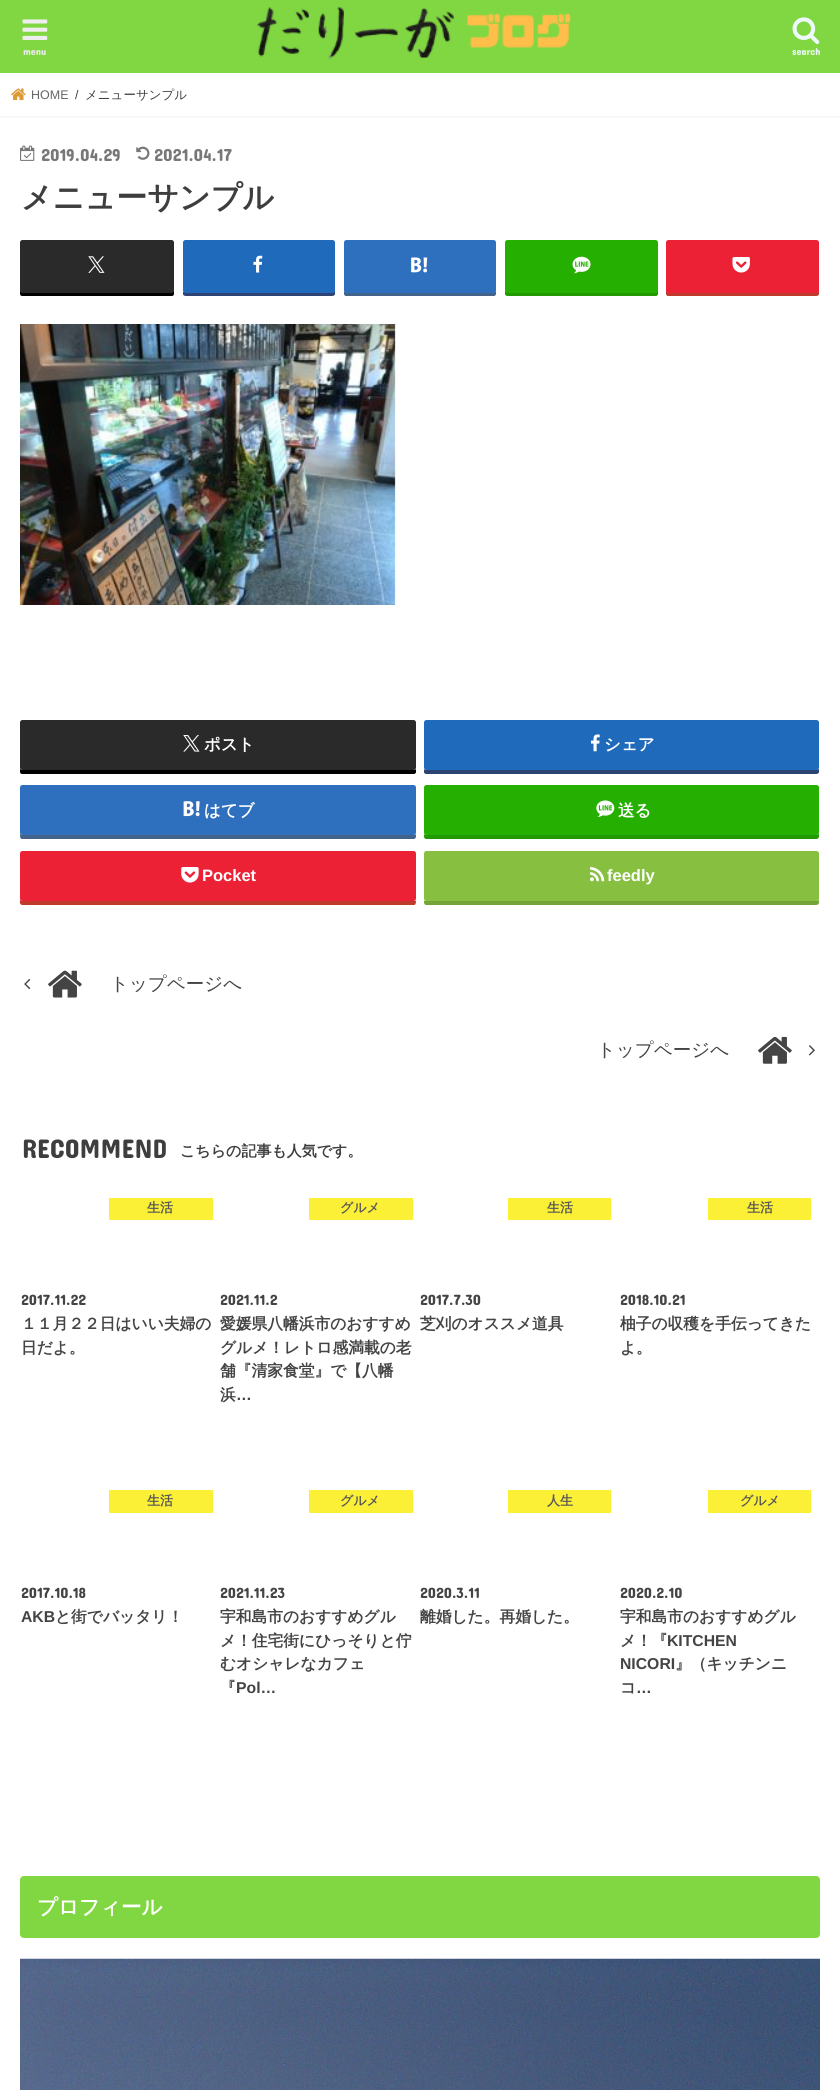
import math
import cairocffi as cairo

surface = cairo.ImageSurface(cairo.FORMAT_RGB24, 840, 2090)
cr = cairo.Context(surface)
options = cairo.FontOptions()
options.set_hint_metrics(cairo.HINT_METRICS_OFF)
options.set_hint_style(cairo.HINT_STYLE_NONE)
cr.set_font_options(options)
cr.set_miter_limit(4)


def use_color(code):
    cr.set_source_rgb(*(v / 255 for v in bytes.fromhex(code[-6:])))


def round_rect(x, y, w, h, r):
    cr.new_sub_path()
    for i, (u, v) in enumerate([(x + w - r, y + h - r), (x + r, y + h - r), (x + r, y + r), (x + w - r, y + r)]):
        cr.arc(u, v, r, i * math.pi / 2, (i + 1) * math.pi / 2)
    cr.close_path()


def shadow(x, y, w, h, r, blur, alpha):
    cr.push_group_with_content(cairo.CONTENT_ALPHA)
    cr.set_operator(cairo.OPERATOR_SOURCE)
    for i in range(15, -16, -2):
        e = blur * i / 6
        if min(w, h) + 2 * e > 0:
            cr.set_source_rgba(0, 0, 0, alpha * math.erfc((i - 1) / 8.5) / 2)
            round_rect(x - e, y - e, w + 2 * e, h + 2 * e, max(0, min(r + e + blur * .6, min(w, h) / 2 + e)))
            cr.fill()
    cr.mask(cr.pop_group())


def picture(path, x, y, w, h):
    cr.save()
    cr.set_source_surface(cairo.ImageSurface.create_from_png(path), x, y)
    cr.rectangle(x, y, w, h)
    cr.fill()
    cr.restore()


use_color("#ffffff")
cr.paint()
use_color("#81d742")
cr.rectangle(0, 0, 840, 73)
cr.fill()
picture("img1.png", 22, 19, 26, 21)
cr.select_font_face("Concert One")
cr.set_font_size(10)
use_color("#eeeeee")
cr.move_to(23, 55)
cr.show_text("menu")
picture("img2.png", 257, 7, 314, 52)
picture("img3.png", 792, 17, 28, 28)
use_color("#edf9fc")
cr.move_to(792, 55)
cr.show_text("search")
use_color("#f7f7f7")
cr.rectangle(0, 116, 840, 1)
cr.fill()
picture("img4.png", 11, 88, 15, 13)
cr.select_font_face("Liberation Sans")
cr.set_font_size(12.5)
use_color("#666666")
cr.move_to(31, 99)
cr.show_text("HOME")
use_color("#3e3e3e")
cr.move_to(75, 99)
cr.show_text("/")
cr.select_font_face("WenQuanYi Zen Hei Medium")
cr.move_to(85, 99)
cr.show_text("メニューサンプル")
use_color("#dddddd")
shadow(0, 118, 840, 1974, 0, 0.5, 1)
use_color("#ffffff")
cr.rectangle(0, 118, 840, 1972)
cr.fill()
picture("img5.png", 20, 145, 15, 16)
cr.select_font_face("Concert One")
cr.set_font_size(17.5)
use_color("#787878")
cr.move_to(41, 161)
cr.show_text("2019.04.29")
picture("img6.png", 136, 146, 14, 14)
cr.move_to(154, 161)
cr.show_text("2021.04.17")
cr.select_font_face("WenQuanYi Zen Hei", cairo.FONT_SLANT_NORMAL, cairo.FONT_WEIGHT_BOLD)
cr.set_font_size(31)
use_color("#3e3e3e")
cr.move_to(21, 208)
cr.show_text("メニューサンプル")
use_color("#000000")
cr.new_path()
cr.move_to(20, 290)
cr.line_to(20, 294)
cr.curve_to(20, 295, 21, 296, 22, 296)
cr.line_to(172, 296)
cr.curve_to(173, 296, 174, 295, 174, 294)
cr.line_to(174, 245)
cr.line_to(174, 290)
cr.curve_to(174, 291, 173, 292, 171, 292)
cr.line_to(22, 292)
cr.curve_to(21, 292, 20, 291, 20, 290)
cr.close_path()
cr.fill()
use_color("#2a2a2a")
round_rect(20, 240, 154, 53, 2.5)
cr.fill()
picture("img7.png", 88, 256, 17, 17)
use_color("#2c4373")
cr.new_path()
cr.move_to(183, 292)
cr.line_to(183, 294)
cr.curve_to(183, 295, 184, 296, 186, 296)
cr.line_to(332, 296)
cr.curve_to(334, 296, 335, 295, 335, 294)
cr.line_to(335, 290)
cr.curve_to(335, 291, 334, 292, 332, 292)
cr.line_to(185, 292)
cr.curve_to(184, 292, 183, 292, 183, 292)
cr.close_path()
cr.fill()
use_color("#1f6aba")
round_rect(183, 240, 152, 53, 2.5)
cr.fill()
picture("img8.png", 253, 255, 10, 18)
use_color("#43638b")
cr.new_path()
cr.move_to(344, 291)
cr.line_to(344, 294)
cr.curve_to(344, 295, 345, 296, 346, 296)
cr.line_to(494, 296)
cr.curve_to(495, 296, 496, 295, 496, 294)
cr.line_to(496, 291)
cr.curve_to(496, 292, 495, 292, 494, 292)
cr.line_to(346, 292)
cr.curve_to(345, 292, 344, 292, 344, 291)
cr.close_path()
cr.fill()
use_color("#2f70be")
round_rect(344, 240, 152, 53, 2.5)
cr.fill()
picture("img9.png", 411, 257, 17, 16)
use_color("#219900")
cr.new_path()
cr.move_to(505, 290)
cr.line_to(505, 294)
cr.curve_to(505, 295, 506, 296, 508, 296)
cr.line_to(656, 296)
cr.curve_to(657, 296, 658, 295, 658, 294)
cr.line_to(658, 246)
cr.line_to(658, 245)
cr.line_to(658, 290)
cr.curve_to(658, 291, 656, 292, 655, 292)
cr.line_to(508, 292)
cr.curve_to(506, 292, 505, 291, 505, 290)
cr.close_path()
cr.fill()
use_color("#25af00")
round_rect(505, 240, 153, 53, 2.5)
cr.fill()
picture("img10.png", 572, 256, 19, 18)
use_color("#c0392b")
cr.new_path()
cr.move_to(666, 245)
cr.line_to(666, 294)
cr.curve_to(666, 295, 667, 296, 668, 296)
cr.line_to(816, 296)
cr.curve_to(818, 296, 819, 295, 819, 294)
cr.line_to(819, 245)
cr.line_to(819, 290)
cr.curve_to(819, 291, 818, 292, 816, 292)
cr.line_to(669, 292)
cr.curve_to(667, 292, 666, 291, 666, 290)
cr.close_path()
cr.fill()
use_color("#ec2136")
round_rect(666, 240, 153, 53, 2.5)
cr.fill()
picture("img11.png", 732, 257, 18, 16)
picture("img12.png", 20, 324, 376, 281)
use_color("#000000")
cr.new_path()
cr.move_to(20, 768)
cr.line_to(20, 772)
cr.curve_to(20, 773, 21, 774, 22, 774)
cr.line_to(414, 774)
cr.curve_to(415, 774, 416, 773, 416, 772)
cr.line_to(416, 769)
cr.curve_to(416, 769, 415, 770, 414, 770)
cr.line_to(22, 770)
cr.curve_to(21, 770, 20, 769, 20, 768)
cr.close_path()
cr.fill()
use_color("#2a2a2a")
round_rect(20, 720, 396, 50, 2.5)
cr.fill()
picture("img13.png", 183, 735, 17, 17)
cr.set_font_size(16.5)
use_color("#ffffff")
cr.move_to(204, 750)
cr.show_text("ポスト")
use_color("#2c4373")
cr.new_path()
cr.move_to(424, 769)
cr.line_to(424, 772)
cr.curve_to(424, 773, 425, 774, 426, 774)
cr.line_to(816, 774)
cr.curve_to(818, 774, 819, 773, 819, 772)
cr.line_to(819, 725)
cr.line_to(819, 768)
cr.curve_to(819, 769, 818, 770, 816, 770)
cr.line_to(426, 770)
cr.curve_to(425, 770, 424, 769, 424, 769)
cr.close_path()
cr.fill()
use_color("#1f6aba")
round_rect(424, 720, 395, 50, 2.5)
cr.fill()
picture("img14.png", 590, 734, 10, 18)
use_color("#ffffff")
cr.move_to(604, 750)
cr.show_text("シェア")
use_color("#43638b")
cr.new_path()
cr.move_to(20, 832)
cr.line_to(20, 836)
cr.curve_to(20, 838, 21, 839, 22, 839)
cr.line_to(414, 839)
cr.curve_to(415, 839, 416, 838, 416, 836)
cr.line_to(416, 834)
cr.curve_to(416, 834, 415, 835, 414, 835)
cr.line_to(22, 835)
cr.curve_to(21, 835, 20, 834, 20, 832)
cr.close_path()
cr.fill()
use_color("#2f70be")
round_rect(20, 785, 396, 50, 2.5)
cr.fill()
picture("img15.png", 183, 801, 17, 16)
use_color("#ffffff")
cr.move_to(204, 816)
cr.show_text("はてブ")
use_color("#219900")
cr.new_path()
cr.move_to(424, 834)
cr.line_to(424, 836)
cr.curve_to(424, 838, 425, 839, 426, 839)
cr.line_to(816, 839)
cr.curve_to(818, 839, 819, 838, 819, 836)
cr.line_to(819, 790)
cr.line_to(819, 832)
cr.curve_to(819, 834, 818, 835, 816, 835)
cr.line_to(426, 835)
cr.curve_to(425, 835, 424, 834, 424, 834)
cr.close_path()
cr.fill()
use_color("#25af00")
round_rect(424, 785, 395, 50, 2.5)
cr.fill()
picture("img16.png", 596, 800, 19, 17)
use_color("#ffffff")
cr.move_to(618, 816)
cr.show_text("送る")
use_color("#c0392b")
cr.new_path()
cr.move_to(20, 899)
cr.curve_to(20, 901, 19, 904, 22, 905)
cr.line_to(414, 905)
cr.curve_to(416, 905, 416, 902, 416, 900)
cr.curve_to(416, 901, 415, 901, 414, 901)
cr.line_to(22, 901)
cr.curve_to(21, 901, 20, 900, 20, 899)
cr.close_path()
cr.fill()
use_color("#ec2136")
round_rect(20, 851, 396, 50, 2.5)
cr.fill()
picture("img17.png", 181, 867, 18, 16)
cr.select_font_face("Liberation Sans", cairo.FONT_SLANT_NORMAL, cairo.FONT_WEIGHT_BOLD)
use_color("#ffffff")
cr.move_to(202, 881)
cr.show_text("Pocket")
use_color("#74a436")
cr.new_path()
cr.move_to(424, 900)
cr.line_to(424, 902)
cr.curve_to(424, 904, 425, 905, 426, 905)
cr.line_to(816, 905)
cr.curve_to(818, 905, 819, 904, 819, 902)
cr.line_to(819, 856)
cr.line_to(819, 899)
cr.curve_to(819, 900, 818, 901, 816, 901)
cr.line_to(426, 901)
cr.curve_to(425, 901, 424, 901, 424, 900)
cr.close_path()
cr.fill()
use_color("#87c040")
round_rect(424, 851, 395, 50, 2.5)
cr.fill()
picture("img18.png", 590, 867, 15, 15)
use_color("#ffffff")
cr.move_to(607, 881)
cr.show_text("feedly")
picture("img19.png", 24, 978, 7, 12)
picture("img20.png", 48, 970, 34, 28)
cr.select_font_face("WenQuanYi Zen Hei Medium")
cr.set_font_size(18.5)
use_color("#444444")
cr.move_to(110, 990)
cr.show_text("トップページへ")
cr.move_to(597, 1056)
cr.show_text("トップページへ")
picture("img21.png", 758, 1036, 34, 28)
picture("img22.png", 808, 1045, 7, 11)
cr.select_font_face("Concert One")
cr.set_font_size(27)
use_color("#3e3e3e")
cr.move_to(22, 1158)
cr.show_text("RECOMMEND")
cr.select_font_face("WenQuanYi Zen Hei", cairo.FONT_SLANT_NORMAL, cairo.FONT_WEIGHT_BOLD)
cr.set_font_size(15)
cr.move_to(180, 1156)
cr.show_text("こちらの記事も人気です。")
use_color("#fcf037")
cr.rectangle(109, 1198, 104, 22)
cr.fill()
cr.set_font_size(13)
use_color("#575757")
cr.move_to(147, 1212)
cr.show_text("生活")
cr.select_font_face("Concert One")
cr.set_font_size(15)
use_color("#444444")
cr.move_to(21, 1305)
cr.show_text("2017.11.22")
cr.select_font_face("WenQuanYi Zen Hei", cairo.FONT_SLANT_NORMAL, cairo.FONT_WEIGHT_BOLD)
cr.set_font_size(15.75)
cr.move_to(21, 1329)
cr.show_text("１１月２２日はいい夫婦の")
cr.move_to(21, 1353)
cr.show_text("日だよ。")
use_color("#fcf037")
cr.rectangle(309, 1198, 104, 22)
cr.fill()
cr.set_font_size(13)
use_color("#575757")
cr.move_to(340, 1212)
cr.show_text("グルメ")
cr.select_font_face("Concert One")
cr.set_font_size(15)
use_color("#444444")
cr.move_to(220, 1305)
cr.show_text("2021.11.2")
cr.select_font_face("WenQuanYi Zen Hei", cairo.FONT_SLANT_NORMAL, cairo.FONT_WEIGHT_BOLD)
cr.set_font_size(15.75)
cr.move_to(220, 1329)
cr.show_text("愛媛県八幡浜市のおすすめ")
cr.move_to(220, 1353)
cr.show_text("グルメ！レトロ感満載の老")
cr.move_to(220, 1376)
cr.show_text("舗『清家食堂』で【八幡")
cr.move_to(220, 1400)
cr.show_text("浜")
cr.select_font_face("Liberation Sans", cairo.FONT_SLANT_NORMAL, cairo.FONT_WEIGHT_BOLD)
cr.move_to(236, 1400)
cr.show_text("…")
use_color("#fcf037")
cr.rectangle(508, 1198, 103, 22)
cr.fill()
cr.select_font_face("WenQuanYi Zen Hei", cairo.FONT_SLANT_NORMAL, cairo.FONT_WEIGHT_BOLD)
cr.set_font_size(13)
use_color("#575757")
cr.move_to(547, 1212)
cr.show_text("生活")
cr.select_font_face("Concert One")
cr.set_font_size(15)
use_color("#444444")
cr.move_to(420, 1305)
cr.show_text("2017.7.30")
cr.select_font_face("WenQuanYi Zen Hei", cairo.FONT_SLANT_NORMAL, cairo.FONT_WEIGHT_BOLD)
cr.set_font_size(15.75)
cr.move_to(420, 1329)
cr.show_text("芝刈のオススメ道具")
use_color("#fcf037")
cr.rectangle(708, 1198, 103, 22)
cr.fill()
cr.set_font_size(13)
use_color("#575757")
cr.move_to(747, 1212)
cr.show_text("生活")
cr.select_font_face("Concert One")
cr.set_font_size(15)
use_color("#444444")
cr.move_to(620, 1305)
cr.show_text("2018.10.21")
cr.select_font_face("WenQuanYi Zen Hei", cairo.FONT_SLANT_NORMAL, cairo.FONT_WEIGHT_BOLD)
cr.set_font_size(15.75)
cr.move_to(620, 1329)
cr.show_text("柚子の収穫を手伝ってきた")
cr.move_to(620, 1353)
cr.show_text("よ。")
use_color("#fcf037")
cr.rectangle(109, 1490, 104, 23)
cr.fill()
cr.set_font_size(13)
use_color("#575757")
cr.move_to(147, 1505)
cr.show_text("生活")
cr.select_font_face("Concert One")
cr.set_font_size(15)
use_color("#444444")
cr.move_to(21, 1598)
cr.show_text("2017.10.18")
cr.select_font_face("Liberation Sans", cairo.FONT_SLANT_NORMAL, cairo.FONT_WEIGHT_BOLD)
cr.set_font_size(15.75)
cr.move_to(21, 1622)
cr.show_text("AKB")
cr.select_font_face("WenQuanYi Zen Hei", cairo.FONT_SLANT_NORMAL, cairo.FONT_WEIGHT_BOLD)
cr.move_to(55, 1622)
cr.show_text("と街でバッタリ！")
use_color("#fcf037")
cr.rectangle(309, 1490, 104, 23)
cr.fill()
cr.set_font_size(13)
use_color("#575757")
cr.move_to(340, 1505)
cr.show_text("グルメ")
cr.select_font_face("Concert One")
cr.set_font_size(15)
use_color("#444444")
cr.move_to(220, 1598)
cr.show_text("2021.11.23")
cr.select_font_face("WenQuanYi Zen Hei", cairo.FONT_SLANT_NORMAL, cairo.FONT_WEIGHT_BOLD)
cr.set_font_size(15.75)
cr.move_to(220, 1622)
cr.show_text("宇和島市のおすすめグル")
cr.move_to(220, 1646)
cr.show_text("メ！住宅街にひっそりと佇")
cr.move_to(220, 1669)
cr.show_text("むオシャレなカフェ")
cr.move_to(220, 1693)
cr.show_text("『")
cr.select_font_face("Liberation Sans", cairo.FONT_SLANT_NORMAL, cairo.FONT_WEIGHT_BOLD)
cr.move_to(236, 1693)
cr.show_text("Pol…")
use_color("#fcf037")
cr.rectangle(508, 1490, 103, 23)
cr.fill()
cr.select_font_face("WenQuanYi Zen Hei", cairo.FONT_SLANT_NORMAL, cairo.FONT_WEIGHT_BOLD)
cr.set_font_size(13)
use_color("#575757")
cr.move_to(547, 1505)
cr.show_text("人生")
cr.select_font_face("Concert One")
cr.set_font_size(15)
use_color("#444444")
cr.move_to(420, 1598)
cr.show_text("2020.3.11")
cr.select_font_face("WenQuanYi Zen Hei", cairo.FONT_SLANT_NORMAL, cairo.FONT_WEIGHT_BOLD)
cr.set_font_size(15.75)
cr.move_to(420, 1622)
cr.show_text("離婚した。再婚した。")
use_color("#fcf037")
cr.rectangle(708, 1490, 103, 23)
cr.fill()
cr.set_font_size(13)
use_color("#575757")
cr.move_to(740, 1505)
cr.show_text("グルメ")
cr.select_font_face("Concert One")
cr.set_font_size(15)
use_color("#444444")
cr.move_to(620, 1598)
cr.show_text("2020.2.10")
cr.select_font_face("WenQuanYi Zen Hei", cairo.FONT_SLANT_NORMAL, cairo.FONT_WEIGHT_BOLD)
cr.set_font_size(15.75)
cr.move_to(620, 1622)
cr.show_text("宇和島市のおすすめグル")
cr.move_to(620, 1646)
cr.show_text("メ！『")
cr.select_font_face("Liberation Sans", cairo.FONT_SLANT_NORMAL, cairo.FONT_WEIGHT_BOLD)
cr.move_to(667, 1646)
cr.show_text("KITCHEN")
cr.move_to(620, 1669)
cr.show_text("NICORI")
cr.select_font_face("WenQuanYi Zen Hei", cairo.FONT_SLANT_NORMAL, cairo.FONT_WEIGHT_BOLD)
cr.move_to(675, 1669)
cr.show_text("』（キッチンニ")
cr.move_to(620, 1693)
cr.show_text("コ")
cr.select_font_face("Liberation Sans", cairo.FONT_SLANT_NORMAL, cairo.FONT_WEIGHT_BOLD)
cr.move_to(636, 1693)
cr.show_text("…")
use_color("#81d742")
round_rect(20, 1876, 800, 62, 4)
cr.fill()
cr.select_font_face("WenQuanYi Zen Hei", cairo.FONT_SLANT_NORMAL, cairo.FONT_WEIGHT_BOLD)
cr.set_font_size(20.5)
use_color("#ffffff")
cr.move_to(37, 1914)
cr.show_text("プロフィール")
picture("img23.png", 20, 1958, 800, 132)
surface.write_to_png("result.png")
